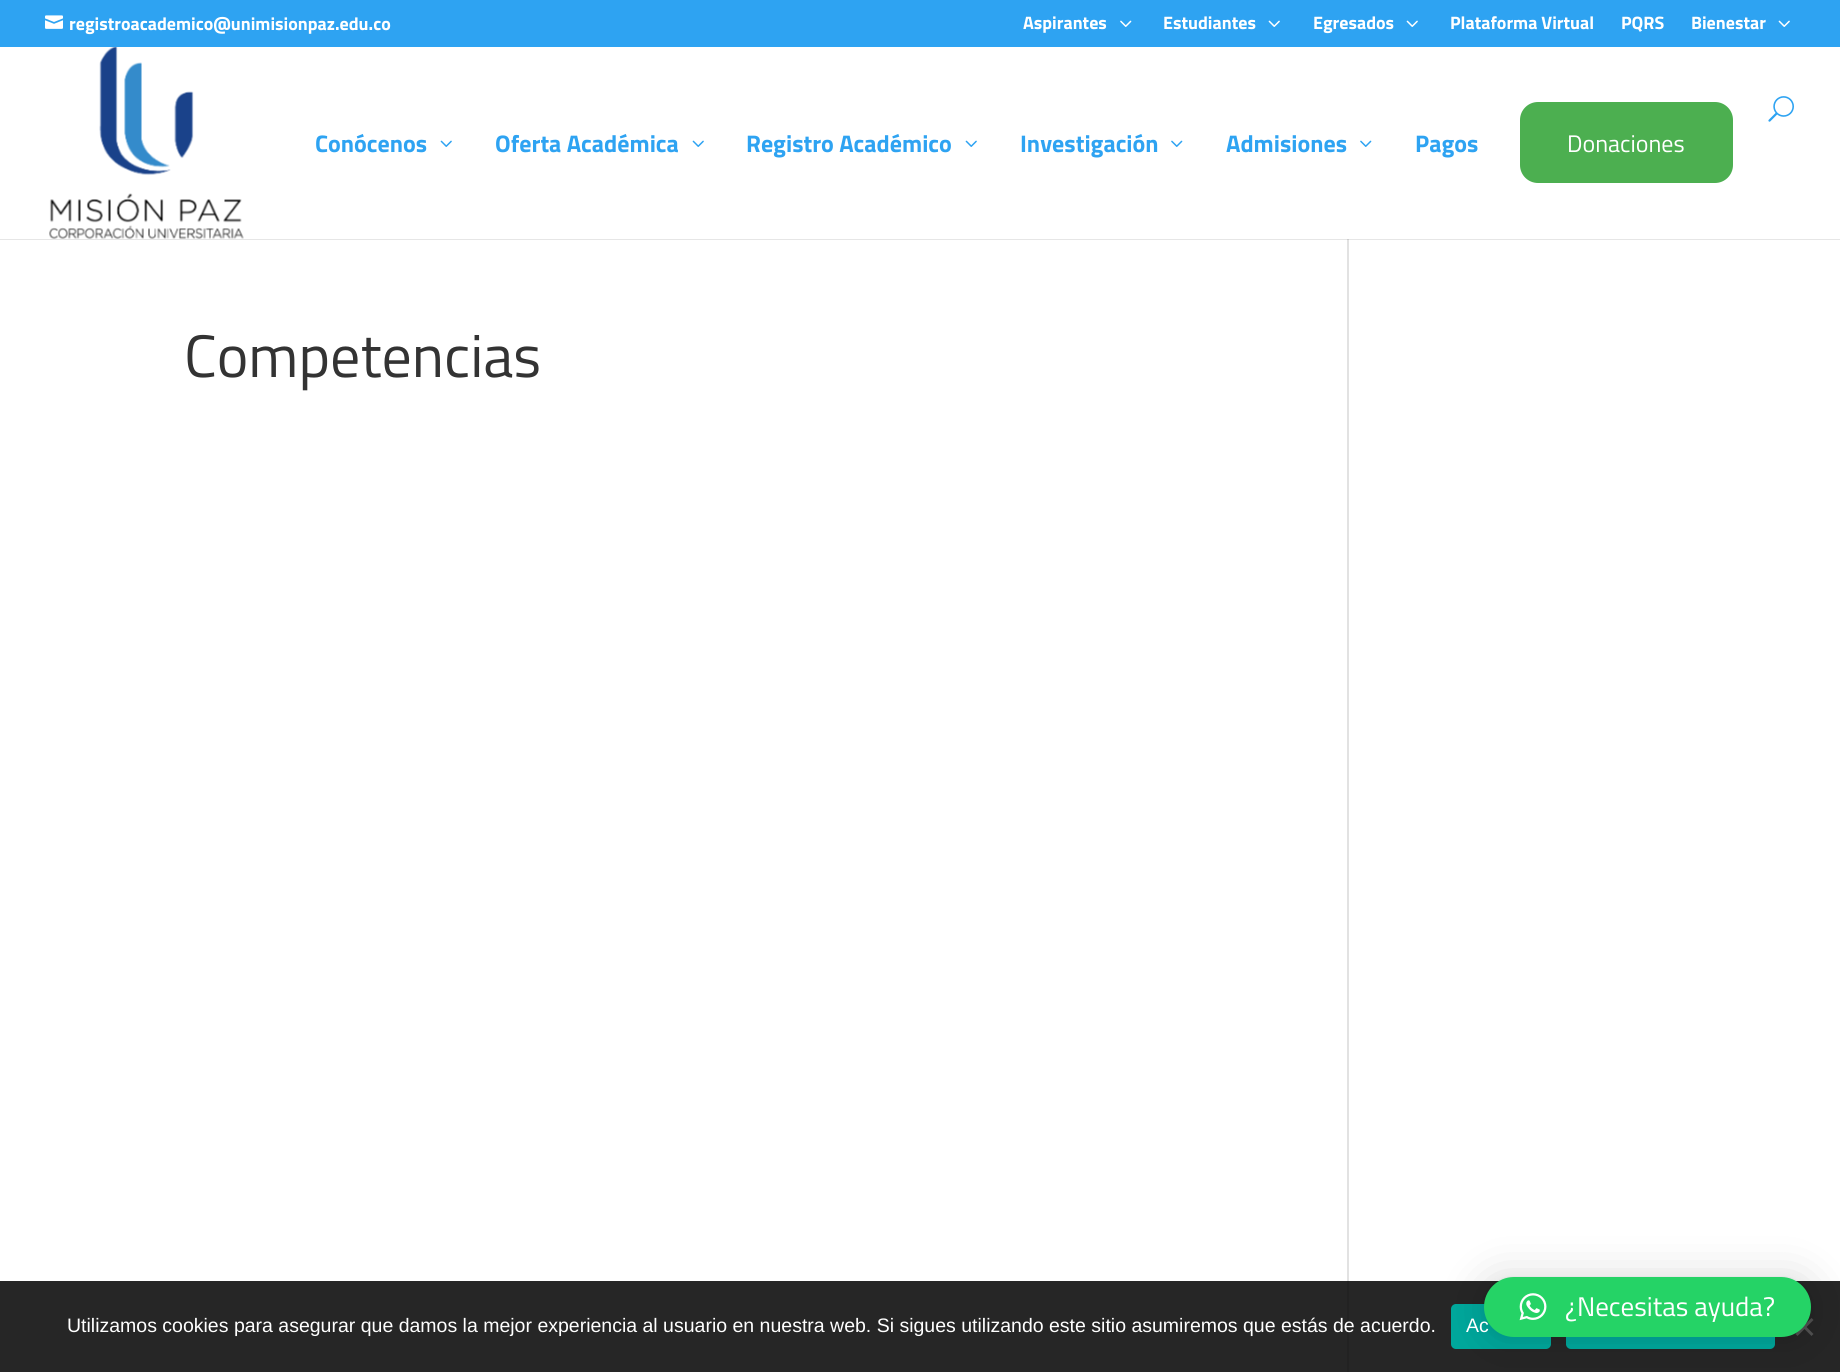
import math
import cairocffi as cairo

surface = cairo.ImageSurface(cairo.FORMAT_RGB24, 1840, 1372)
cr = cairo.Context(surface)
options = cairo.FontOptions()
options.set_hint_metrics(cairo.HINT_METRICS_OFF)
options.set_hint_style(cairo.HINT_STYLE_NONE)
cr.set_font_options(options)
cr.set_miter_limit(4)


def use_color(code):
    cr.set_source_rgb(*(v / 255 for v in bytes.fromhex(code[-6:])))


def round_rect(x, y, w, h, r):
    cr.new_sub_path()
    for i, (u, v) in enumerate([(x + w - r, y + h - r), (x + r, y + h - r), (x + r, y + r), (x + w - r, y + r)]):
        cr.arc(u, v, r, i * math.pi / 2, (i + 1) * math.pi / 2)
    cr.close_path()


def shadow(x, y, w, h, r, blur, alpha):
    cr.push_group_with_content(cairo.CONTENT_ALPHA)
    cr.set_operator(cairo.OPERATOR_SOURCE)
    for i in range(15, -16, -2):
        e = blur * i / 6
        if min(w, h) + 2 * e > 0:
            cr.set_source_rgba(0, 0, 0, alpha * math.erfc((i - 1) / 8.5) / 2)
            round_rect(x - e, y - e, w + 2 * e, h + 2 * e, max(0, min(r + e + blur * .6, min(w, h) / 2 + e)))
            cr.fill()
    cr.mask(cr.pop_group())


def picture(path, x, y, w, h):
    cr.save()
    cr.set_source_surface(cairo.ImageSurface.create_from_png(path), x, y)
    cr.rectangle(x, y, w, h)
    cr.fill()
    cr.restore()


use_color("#ffffff")
cr.paint()
use_color("#262626")
cr.rectangle(0, 1281, 1840, 91)
cr.fill()
use_color("#2ea3f2")
cr.rectangle(0, 0, 1840, 47)
cr.fill()
picture("img1.png", 45, 15, 18, 14)
cr.select_font_face("Titillium Web", cairo.FONT_SLANT_NORMAL, cairo.FONT_WEIGHT_BOLD)
cr.set_font_size(18)
use_color("#ffffff")
cr.move_to(69, 30)
cr.show_text("registroacademico@unimisionpaz.edu.co")
cr.move_to(1023, 29)
cr.show_text("Aspirantes")
picture("img2.png", 1120, 20, 12, 7)
cr.move_to(1163, 29)
cr.show_text("Estudiantes")
picture("img3.png", 1268, 20, 12, 7)
cr.move_to(1313, 29)
cr.show_text("Egresados")
picture("img3.png", 1406, 20, 12, 7)
cr.move_to(1450, 29)
cr.show_text("Plataforma Virtual")
cr.move_to(1621, 29)
cr.show_text("PQRS")
cr.move_to(1691, 29)
cr.show_text("Bienestar")
picture("img3.png", 1778, 20, 12, 7)
use_color("#e2e2e2")
cr.rectangle(1347, 239, 2, 1042)
cr.fill()
cr.set_source_rgba(0, 0, 0, 0.1)
cr.new_path()
cr.move_to(0, 238)
cr.line_to(0, 240)
cr.line_to(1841, 240)
cr.line_to(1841, 48)
cr.line_to(1840, 48)
cr.line_to(1840, 238)
cr.close_path()
cr.fill()
use_color("#ffffff")
cr.rectangle(0, 238, 1840, 1)
cr.fill()
picture("img4.png", 49, 47, 195, 192)
picture("img5.png", 1768, 96, 26, 26)
cr.set_font_size(24)
use_color("#2ea3f2")
cr.move_to(315, 152)
cr.show_text("Conócenos")
picture("img6.png", 440, 140, 12, 7)
cr.move_to(495, 152)
cr.show_text("Oferta Académica")
picture("img6.png", 692, 140, 12, 7)
cr.move_to(746, 152)
cr.show_text("Registro Académico")
picture("img6.png", 965, 140, 12, 7)
cr.move_to(1020, 152)
cr.show_text("Investigación")
picture("img7.png", 1171, 140, 12, 7)
cr.move_to(1226, 152)
cr.show_text("Admisiones")
picture("img7.png", 1360, 140, 12, 7)
cr.move_to(1415, 152)
cr.show_text("Pagos")
use_color("#4caf50")
round_rect(1520, 102, 213, 81, 18)
cr.fill()
cr.select_font_face("Titillium Web")
use_color("#ffffff")
cr.move_to(1567, 152)
cr.show_text("Donaciones")
cr.set_font_size(60)
use_color("#333333")
cr.move_to(184, 377)
cr.show_text("Competencias")
use_color("#222222")
cr.rectangle(1347, 1281, 2, 91)
cr.fill()
use_color("#00a99d")
round_rect(1451, 1304, 100, 45, 5)
cr.fill()
round_rect(1566, 1304, 209, 45, 5)
cr.fill()
use_color("#535353")
cr.new_path()
cr.move_to(1811.5, 1318)
cr.line_to(1813.5, 1320)
cr.line_to(1797.5, 1336)
cr.line_to(1795.5, 1334)
cr.close_path()
cr.fill()
cr.new_path()
cr.move_to(1795.5, 1320)
cr.line_to(1797.5, 1318)
cr.line_to(1813.5, 1334)
cr.line_to(1811.5, 1336)
cr.close_path()
cr.fill()
use_color("#000000")
shadow(1484, 1280, 327, 60, 30, 24, 0.16)
shadow(1484, 1278, 327, 60, 30, 4.5, 0.06)
cr.select_font_face("Liberation Sans")
cr.set_font_size(19.5)
use_color("#ffffff")
cr.move_to(1466, 1332)
cr.show_text("Ac")
use_color("#25d366")
round_rect(1484, 1277, 327, 60, 30)
cr.fill()
picture("img8.png", 1519, 1293, 28, 28)
cr.select_font_face("Titillium Web")
cr.set_font_size(27)
use_color("#ffffff")
cr.move_to(1565, 1316)
cr.show_text("¿Necesitas ayuda?")
cr.select_font_face("Liberation Sans")
cr.set_font_size(19.5)
cr.move_to(67, 1332)
cr.show_text("Utilizamos cookies para asegurar que damos la mejor experiencia al usuario en nuestra web. Si sigues utilizando este sitio asumiremos que estás de acuerdo.")
surface.write_to_png("result.png")
